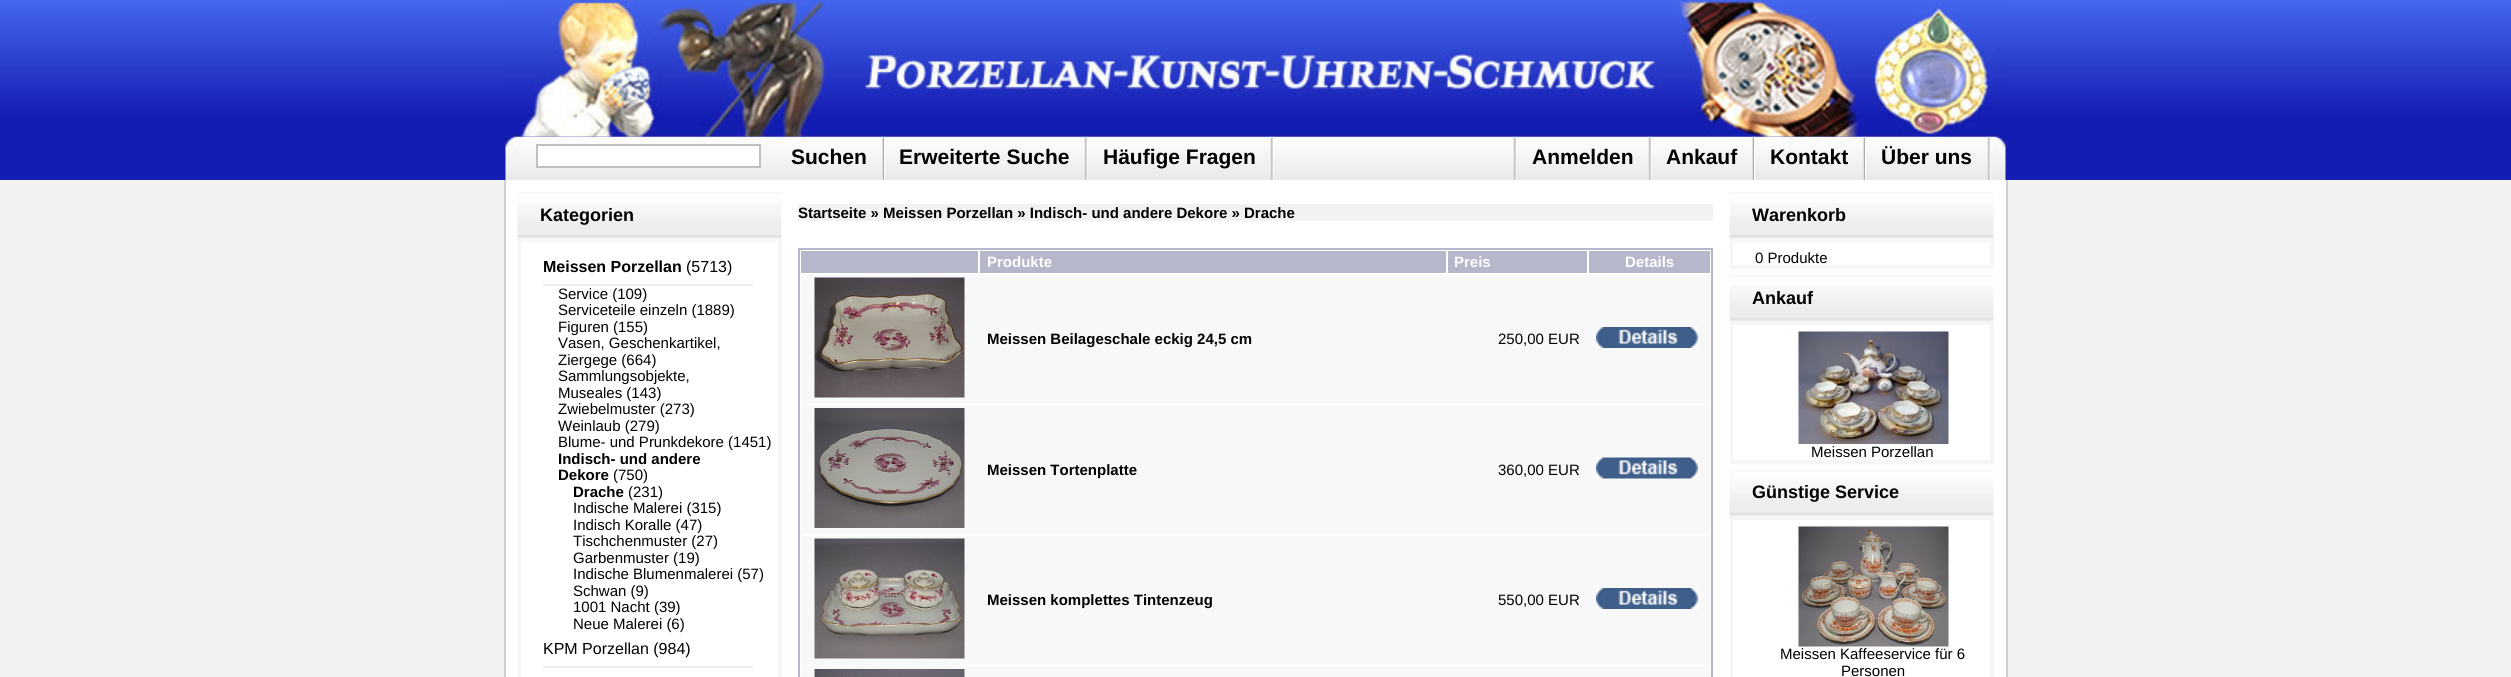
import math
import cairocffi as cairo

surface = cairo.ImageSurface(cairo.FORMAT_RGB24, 2511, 677)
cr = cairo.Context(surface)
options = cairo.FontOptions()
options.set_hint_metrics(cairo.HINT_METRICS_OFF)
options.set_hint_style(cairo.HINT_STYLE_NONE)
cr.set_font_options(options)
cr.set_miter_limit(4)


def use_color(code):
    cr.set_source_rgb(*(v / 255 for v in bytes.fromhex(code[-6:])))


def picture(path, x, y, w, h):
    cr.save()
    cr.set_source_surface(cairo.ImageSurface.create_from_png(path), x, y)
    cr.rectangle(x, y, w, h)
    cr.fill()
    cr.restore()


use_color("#f2f2f2")
cr.paint()
picture("img1.png", 0, 0, 2511, 180)
picture("img3.png", 505, 136, 1501, 44)
picture("img4.png", 882, 136, 3, 44)
picture("img5.png", 1084, 136, 4, 44)
picture("img5.png", 1270, 136, 4, 44)
picture("img5.png", 1513, 136, 4, 44)
picture("img5.png", 1648, 136, 4, 44)
picture("img6.png", 1752, 136, 3, 44)
picture("img4.png", 1863, 136, 3, 44)
picture("img5.png", 1987, 136, 4, 44)
picture("img2.png", 505, 0, 1501, 137)
use_color("#ffffff")
cr.rectangle(537, 145, 223, 22)
cr.fill_preserve()
use_color("#c0c0c0")
cr.stroke()
cr.select_font_face("Liberation Sans", cairo.FONT_SLANT_NORMAL, cairo.FONT_WEIGHT_BOLD)
cr.set_font_size(21)
use_color("#000000")
cr.move_to(791, 164)
cr.show_text("Suchen")
cr.move_to(899, 164)
cr.show_text("Erweiterte Suche")
cr.move_to(1103, 164)
cr.show_text("Häufige Fragen")
cr.move_to(1532, 164)
cr.show_text("Anmelden")
cr.move_to(1666, 164)
cr.show_text("Ankauf")
cr.move_to(1770, 164)
cr.show_text("Kontakt")
cr.move_to(1881, 164)
cr.show_text("Über uns")
use_color("#ffffff")
cr.rectangle(506, 180, 1500, 497)
cr.fill()
use_color("#cecece")
cr.rectangle(2006, 180, 2, 497)
cr.fill()
cr.rectangle(504, 180, 2, 497)
cr.fill()
picture("img7.png", 517, 192, 265, 47)
cr.set_font_size(18)
use_color("#000000")
cr.move_to(540, 221)
cr.show_text("Kategorien")
cr.rectangle(519, 240, 262, 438)
use_color("#f6f6f6")
cr.stroke()
cr.rectangle(520, 241, 259, 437)
cr.stroke()
cr.set_font_size(16)
use_color("#000000")
cr.move_to(543, 272)
cr.show_text("Meissen Porzellan")
cr.select_font_face("Liberation Sans")
cr.move_to(686, 272)
cr.show_text("(5713)")
use_color("#efefef")
cr.rectangle(543, 284, 210, 2)
cr.fill()
cr.set_font_size(15)
use_color("#000000")
cr.move_to(558, 299)
cr.show_text("Service (109)")
cr.move_to(558, 315)
cr.show_text("Serviceteile einzeln (1889)")
cr.move_to(558, 332)
cr.show_text("Figuren (155)")
cr.move_to(558, 348)
cr.show_text("Vasen, Geschenkartikel,")
cr.move_to(558, 365)
cr.show_text("Ziergege (664)")
cr.move_to(558, 381)
cr.show_text("Sammlungsobjekte,")
cr.move_to(558, 398)
cr.show_text("Museales (143)")
cr.move_to(558, 414)
cr.show_text("Zwiebelmuster (273)")
cr.move_to(558, 431)
cr.show_text("Weinlaub (279)")
cr.move_to(558, 447)
cr.show_text("Blume- und Prunkdekore (1451)")
cr.select_font_face("Liberation Sans", cairo.FONT_SLANT_NORMAL, cairo.FONT_WEIGHT_BOLD)
cr.move_to(558, 464)
cr.show_text("Indisch- und andere")
cr.move_to(558, 480)
cr.show_text("Dekore")
cr.select_font_face("Liberation Sans")
cr.move_to(613, 480)
cr.show_text("(750)")
cr.select_font_face("Liberation Sans", cairo.FONT_SLANT_NORMAL, cairo.FONT_WEIGHT_BOLD)
cr.move_to(573, 497)
cr.show_text("Drache")
cr.select_font_face("Liberation Sans")
cr.move_to(628, 497)
cr.show_text("(231)")
cr.move_to(573, 513)
cr.show_text("Indische Malerei (315)")
cr.move_to(573, 530)
cr.show_text("Indisch Koralle (47)")
cr.move_to(573, 546)
cr.show_text("Tischchenmuster (27)")
cr.move_to(573, 563)
cr.show_text("Garbenmuster (19)")
cr.move_to(573, 579)
cr.show_text("Indische Blumenmalerei (57)")
cr.move_to(573, 596)
cr.show_text("Schwan (9)")
cr.move_to(573, 612)
cr.show_text("1001 Nacht (39)")
cr.move_to(573, 629)
cr.show_text("Neue Malerei (6)")
cr.set_font_size(16)
cr.move_to(543, 654)
cr.show_text("KPM Porzellan (984)")
use_color("#efefef")
cr.rectangle(543, 666, 210, 2)
cr.fill()
use_color("#f2f2f2")
cr.rectangle(798, 204, 915, 17)
cr.fill()
cr.select_font_face("Liberation Sans", cairo.FONT_SLANT_NORMAL, cairo.FONT_WEIGHT_BOLD)
cr.set_font_size(15)
use_color("#000000")
cr.move_to(798, 218)
cr.show_text("Startseite » Meissen Porzellan » Indisch- und andere Dekore » Drache")
cr.rectangle(799, 249, 913, 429)
use_color("#b6b7cb")
cr.stroke()
cr.rectangle(801, 251, 177, 22)
cr.fill()
cr.rectangle(980, 251, 466, 22)
cr.fill()
use_color("#ffffff")
cr.move_to(987, 267)
cr.show_text("Produkte")
use_color("#b6b7cb")
cr.rectangle(1448, 251, 139, 22)
cr.fill()
use_color("#ffffff")
cr.move_to(1454, 267)
cr.show_text("Preis")
use_color("#b6b7cb")
cr.rectangle(1589, 251, 121, 22)
cr.fill()
use_color("#ffffff")
cr.move_to(1625, 267)
cr.show_text("Details")
use_color("#f8f8f9")
cr.rectangle(801, 275, 909, 129)
cr.fill()
picture("img8.png", 814, 277, 151, 121)
use_color("#000000")
cr.move_to(987, 344)
cr.show_text("Meissen Beilageschale eckig 24,5 cm")
cr.select_font_face("Liberation Sans")
cr.move_to(1498, 344)
cr.show_text("250,00 EUR")
picture("img9.png", 1596, 327, 102, 21)
use_color("#f8f8f9")
cr.rectangle(801, 405, 909, 129)
cr.fill()
picture("img10.png", 814, 408, 151, 120)
cr.select_font_face("Liberation Sans", cairo.FONT_SLANT_NORMAL, cairo.FONT_WEIGHT_BOLD)
use_color("#000000")
cr.move_to(987, 475)
cr.show_text("Meissen Tortenplatte")
cr.select_font_face("Liberation Sans")
cr.move_to(1498, 475)
cr.show_text("360,00 EUR")
picture("img11.png", 1596, 457, 102, 22)
use_color("#f8f8f9")
cr.rectangle(801, 536, 909, 129)
cr.fill()
picture("img12.png", 814, 538, 151, 121)
cr.select_font_face("Liberation Sans", cairo.FONT_SLANT_NORMAL, cairo.FONT_WEIGHT_BOLD)
use_color("#000000")
cr.move_to(987, 605)
cr.show_text("Meissen komplettes Tintenzeug")
cr.select_font_face("Liberation Sans")
cr.move_to(1498, 605)
cr.show_text("550,00 EUR")
picture("img9.png", 1596, 588, 102, 21)
use_color("#f8f8f9")
cr.rectangle(801, 666, 909, 11)
cr.fill()
picture("img13.png", 814, 669, 151, 8)
picture("img14.png", 1729, 192, 265, 47)
cr.select_font_face("Liberation Sans", cairo.FONT_SLANT_NORMAL, cairo.FONT_WEIGHT_BOLD)
cr.set_font_size(18)
use_color("#000000")
cr.move_to(1752, 221)
cr.show_text("Warenkorb")
cr.rectangle(1731, 240, 262, 28)
use_color("#f6f6f6")
cr.stroke()
cr.rectangle(1732, 241, 259, 25)
cr.stroke()
cr.select_font_face("Liberation Sans")
cr.set_font_size(15)
use_color("#000000")
cr.move_to(1755, 263)
cr.show_text("0 Produkte")
picture("img15.png", 1729, 274, 265, 47)
cr.select_font_face("Liberation Sans", cairo.FONT_SLANT_NORMAL, cairo.FONT_WEIGHT_BOLD)
cr.set_font_size(18)
cr.move_to(1752, 304)
cr.show_text("Ankauf")
cr.rectangle(1731, 322, 262, 141)
use_color("#f6f6f6")
cr.stroke()
cr.rectangle(1732, 324, 259, 137)
cr.stroke()
picture("img16.png", 1798, 331, 151, 113)
cr.select_font_face("Liberation Sans")
cr.set_font_size(15)
use_color("#000000")
cr.move_to(1811, 457)
cr.show_text("Meissen Porzellan")
picture("img15.png", 1729, 469, 265, 47)
cr.select_font_face("Liberation Sans", cairo.FONT_SLANT_NORMAL, cairo.FONT_WEIGHT_BOLD)
cr.set_font_size(18)
cr.move_to(1752, 498)
cr.show_text("Günstige Service")
cr.rectangle(1731, 517, 262, 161)
use_color("#f6f6f6")
cr.stroke()
cr.rectangle(1732, 519, 259, 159)
cr.stroke()
picture("img17.png", 1798, 526, 151, 121)
cr.select_font_face("Liberation Sans")
cr.set_font_size(15)
use_color("#000000")
cr.move_to(1780, 659)
cr.show_text("Meissen Kaffeeservice für 6")
cr.move_to(1841, 676)
cr.show_text("Personen")
surface.write_to_png("result.png")
